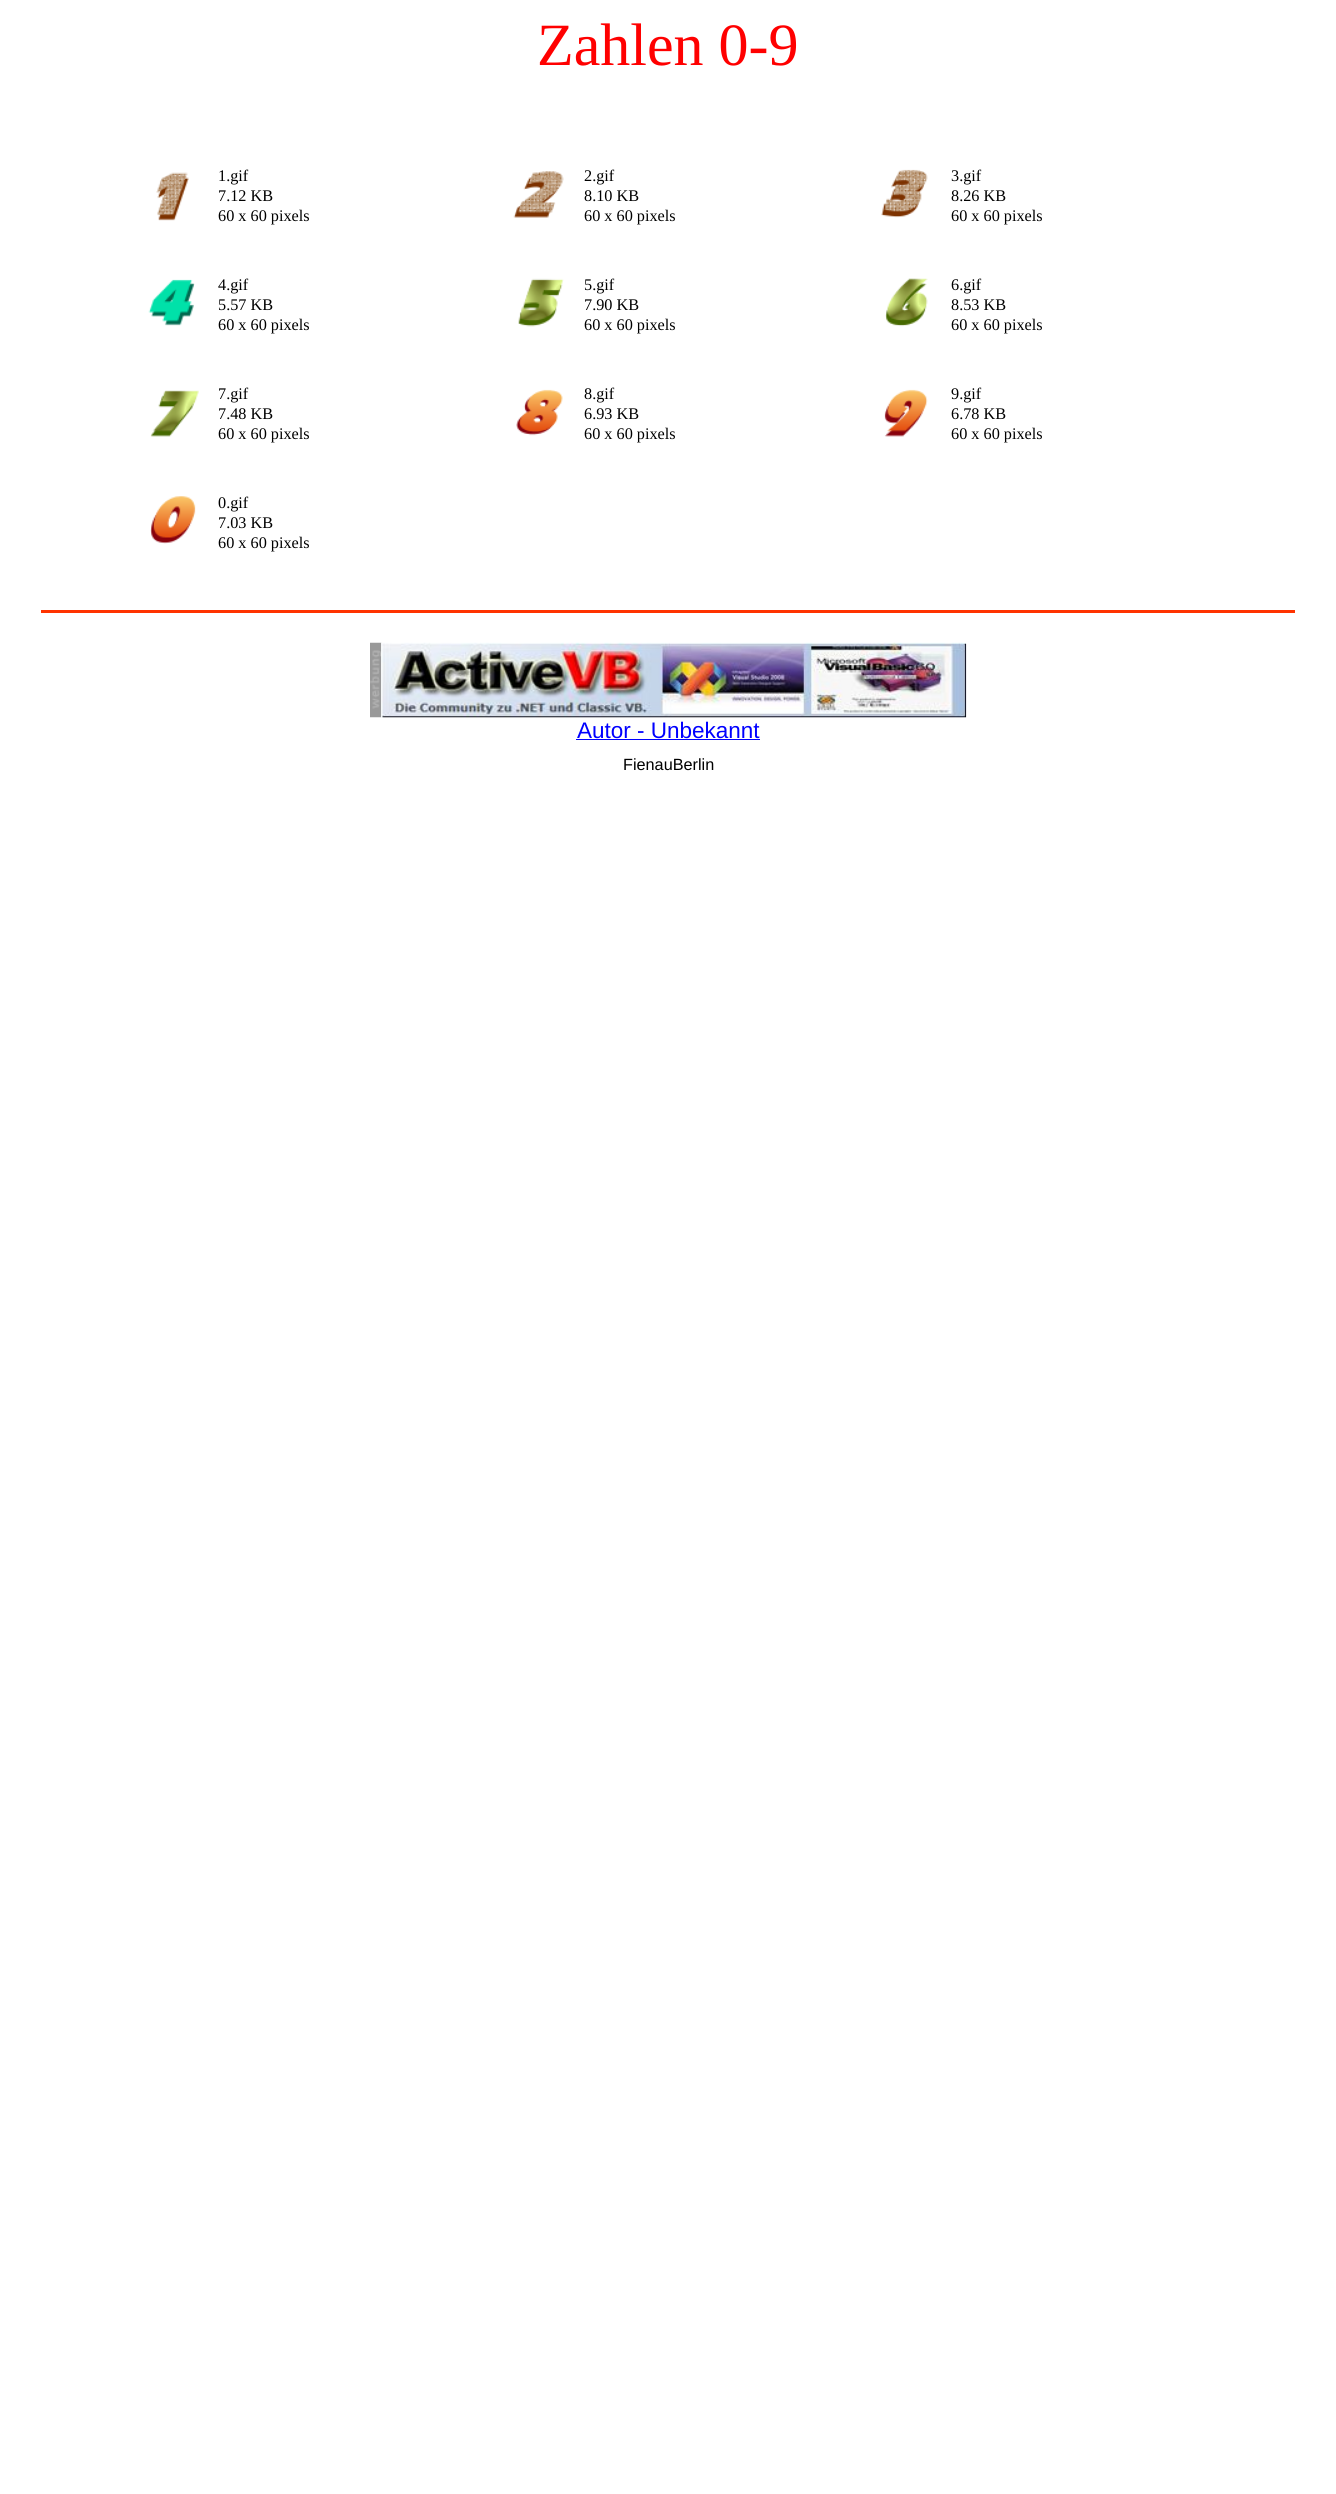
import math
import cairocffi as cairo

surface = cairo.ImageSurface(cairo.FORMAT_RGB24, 1336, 2494)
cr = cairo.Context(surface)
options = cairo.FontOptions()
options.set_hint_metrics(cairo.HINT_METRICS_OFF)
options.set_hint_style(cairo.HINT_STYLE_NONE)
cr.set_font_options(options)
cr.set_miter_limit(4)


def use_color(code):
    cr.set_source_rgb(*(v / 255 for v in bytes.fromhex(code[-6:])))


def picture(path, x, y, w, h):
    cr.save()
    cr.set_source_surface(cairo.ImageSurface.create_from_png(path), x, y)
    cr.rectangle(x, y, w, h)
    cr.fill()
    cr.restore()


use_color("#ffffff")
cr.paint()
cr.select_font_face("Liberation Serif")
cr.set_font_size(60)
use_color("#ff0000")
cr.move_to(537, 65)
cr.show_text("Zahlen 0-9")
picture("img1.png", 156, 172, 33, 49)
cr.set_font_size(16.25)
use_color("#000000")
cr.move_to(218, 181)
cr.show_text("1.gif")
cr.move_to(218, 201)
cr.show_text("7.12 KB")
cr.move_to(218, 221)
cr.show_text("60 x 60 pixels")
picture("img2.png", 513, 171, 51, 47)
cr.move_to(584, 181)
cr.show_text("2.gif")
cr.move_to(584, 201)
cr.show_text("8.10 KB")
cr.move_to(584, 221)
cr.show_text("60 x 60 pixels")
picture("img3.png", 881, 169, 47, 49)
cr.move_to(951, 181)
cr.show_text("3.gif")
cr.move_to(951, 201)
cr.show_text("8.26 KB")
cr.move_to(951, 221)
cr.show_text("60 x 60 pixels")
picture("img4.png", 148, 279, 47, 47)
cr.move_to(218, 290)
cr.show_text("4.gif")
cr.move_to(218, 310)
cr.show_text("5.57 KB")
cr.move_to(218, 330)
cr.show_text("60 x 60 pixels")
picture("img5.png", 518, 278, 46, 49)
cr.move_to(584, 290)
cr.show_text("5.gif")
cr.move_to(584, 310)
cr.show_text("7.90 KB")
cr.move_to(584, 330)
cr.show_text("60 x 60 pixels")
picture("img6.png", 885, 278, 43, 49)
cr.move_to(951, 290)
cr.show_text("6.gif")
cr.move_to(951, 310)
cr.show_text("8.53 KB")
cr.move_to(951, 330)
cr.show_text("60 x 60 pixels")
picture("img7.png", 150, 390, 49, 47)
cr.move_to(218, 399)
cr.show_text("7.gif")
cr.move_to(218, 419)
cr.show_text("7.48 KB")
cr.move_to(218, 439)
cr.show_text("60 x 60 pixels")
picture("img8.png", 516, 389, 47, 47)
cr.move_to(584, 399)
cr.show_text("8.gif")
cr.move_to(584, 419)
cr.show_text("6.93 KB")
cr.move_to(584, 439)
cr.show_text("60 x 60 pixels")
picture("img9.png", 884, 389, 44, 48)
cr.move_to(951, 399)
cr.show_text("9.gif")
cr.move_to(951, 419)
cr.show_text("6.78 KB")
cr.move_to(951, 439)
cr.show_text("60 x 60 pixels")
picture("img10.png", 150, 496, 46, 48)
cr.move_to(218, 508)
cr.show_text("0.gif")
cr.move_to(218, 528)
cr.show_text("7.03 KB")
cr.move_to(218, 548)
cr.show_text("60 x 60 pixels")
use_color("#ff3300")
cr.rectangle(41, 610, 1254, 3)
cr.fill()
picture("img11.png", 370, 642, 597, 76)
cr.select_font_face("Liberation Sans")
cr.set_font_size(22.5)
use_color("#0000ff")
cr.move_to(577, 738)
cr.show_text("Autor - Unbekannt")
cr.rectangle(576, 739, 184, 1)
cr.fill()
cr.set_font_size(16.25)
use_color("#000000")
cr.move_to(623, 770)
cr.show_text("FienauBerlin")
surface.write_to_png("result.png")
